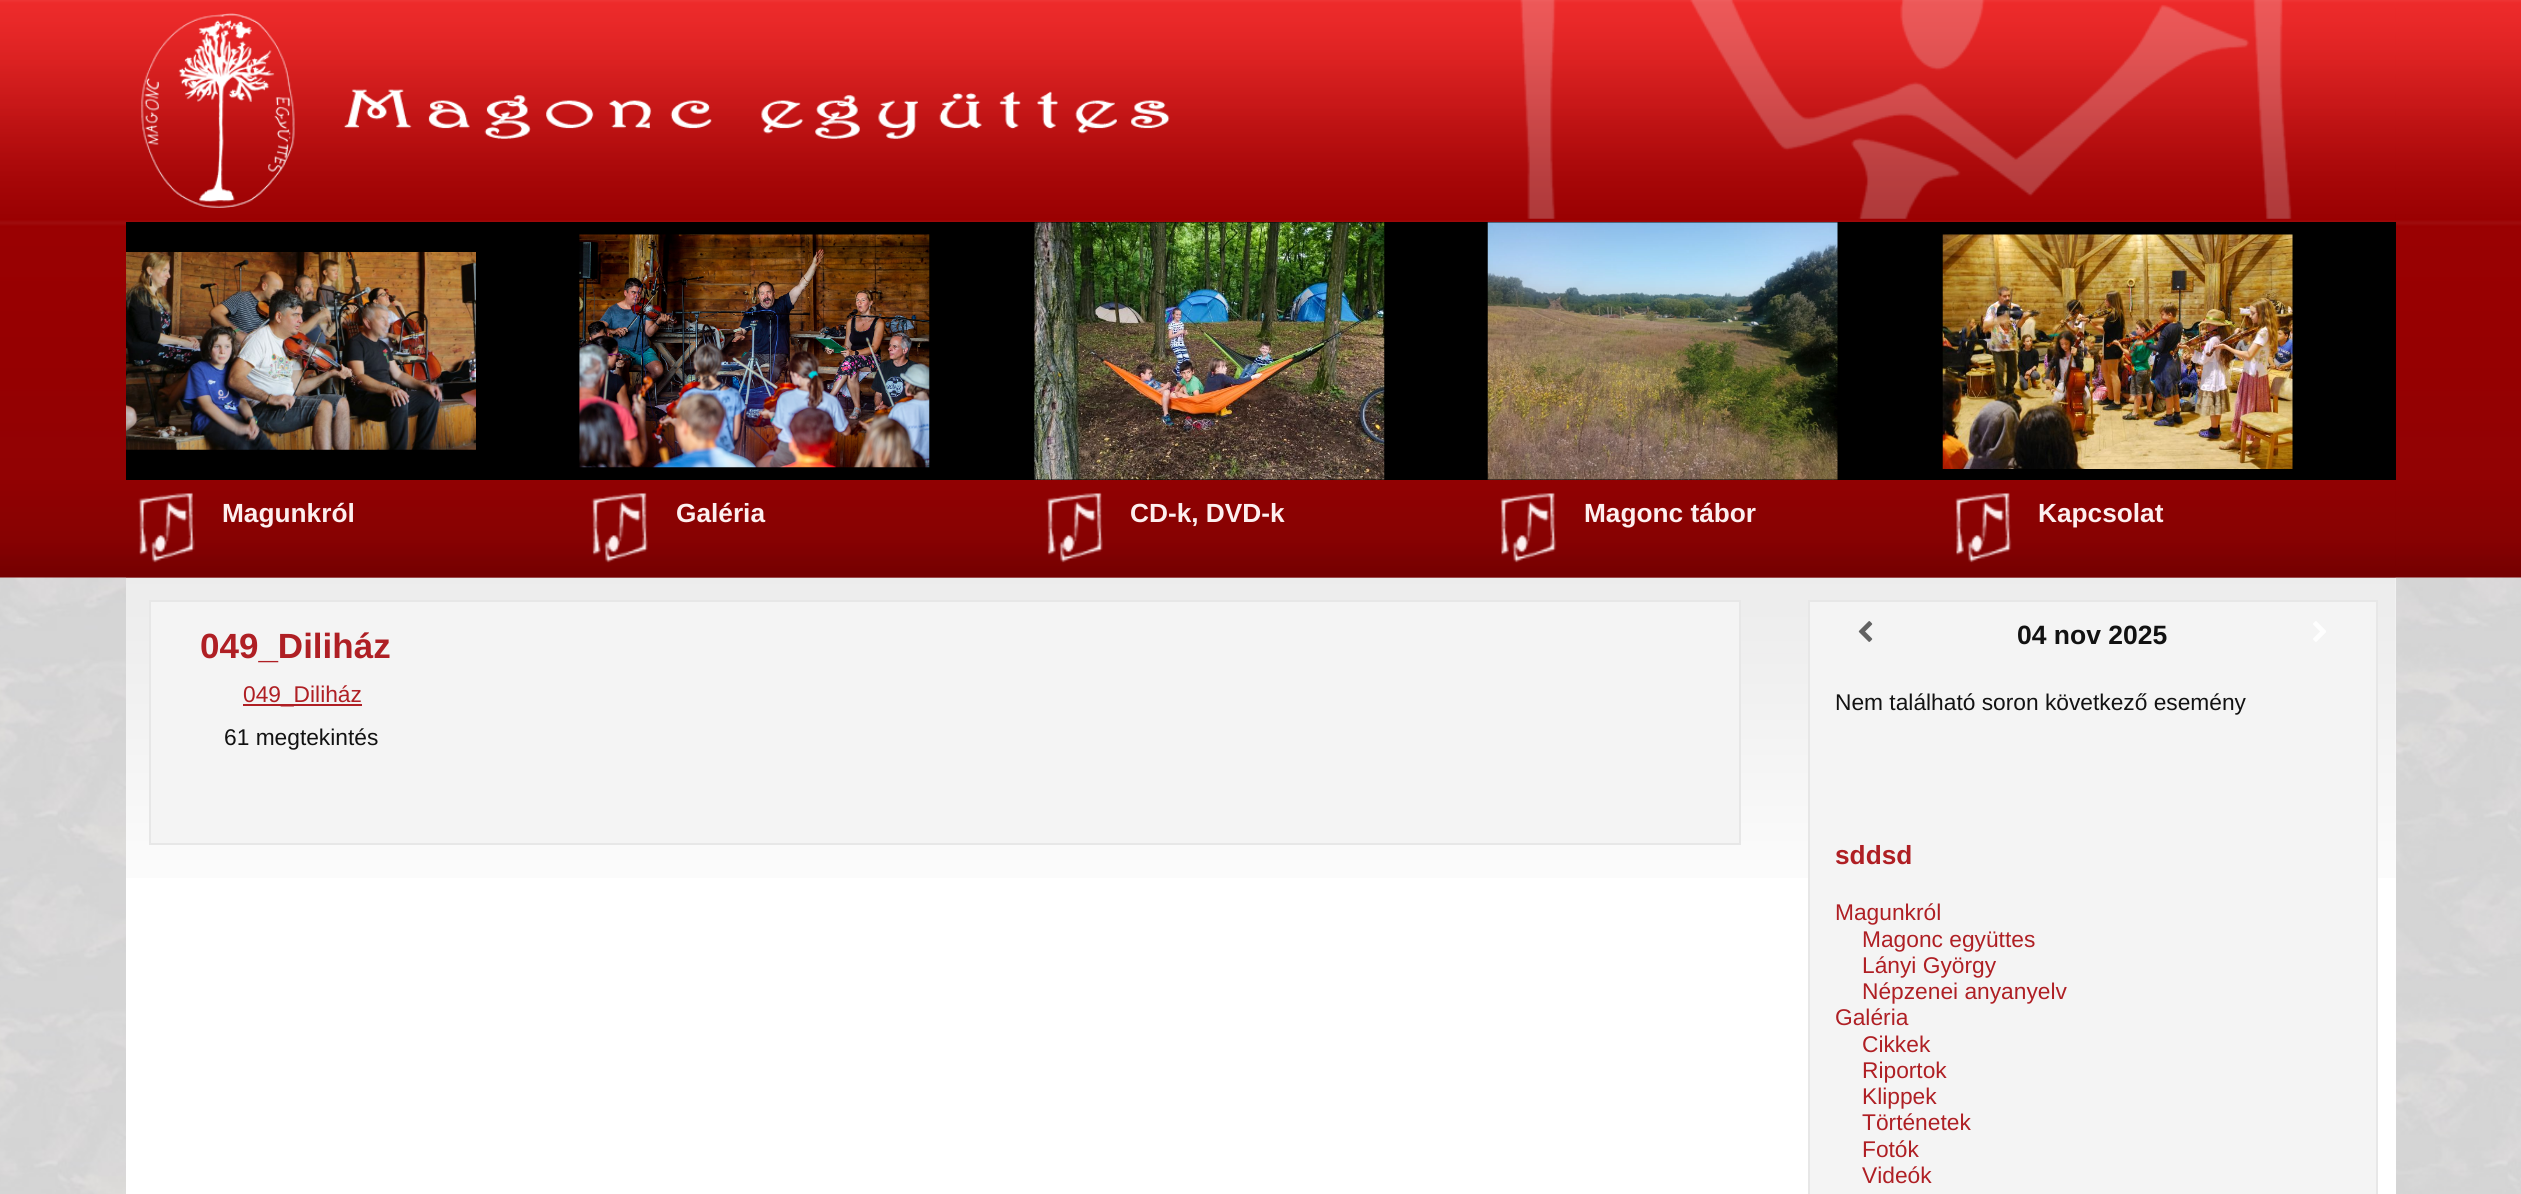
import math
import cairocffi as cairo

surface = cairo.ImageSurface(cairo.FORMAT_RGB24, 2521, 1194)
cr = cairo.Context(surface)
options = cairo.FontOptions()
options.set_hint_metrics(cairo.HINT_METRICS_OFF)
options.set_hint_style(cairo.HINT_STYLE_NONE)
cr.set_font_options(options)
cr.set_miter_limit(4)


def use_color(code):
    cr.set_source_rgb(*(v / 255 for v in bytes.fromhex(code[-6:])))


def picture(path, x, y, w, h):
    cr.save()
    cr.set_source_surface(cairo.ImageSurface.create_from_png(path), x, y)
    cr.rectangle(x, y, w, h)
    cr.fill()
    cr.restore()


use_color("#ffffff")
cr.paint()
picture("img1.png", 0, 577, 2521, 617)
picture("img2.png", 0, 0, 2521, 578)
use_color("#ffffff")
cr.rectangle(126, 578, 2270, 616)
cr.fill()
picture("img15.png", 126, 577, 2270, 301)
picture("img3.png", 126, 8, 2270, 570)
picture("img4.png", 1520, 0, 772, 219)
picture("img5.png", 141, 13, 1029, 195)
use_color("#000000")
cr.rectangle(126, 222, 2270, 258)
cr.fill()
picture("img6.png", 126, 252, 350, 198)
picture("img7.png", 579, 234, 351, 234)
picture("img8.png", 1034, 222, 351, 258)
picture("img9.png", 1487, 222, 351, 258)
picture("img10.png", 1942, 234, 351, 235)
picture("img11.png", 138, 492, 57, 71)
cr.select_font_face("Liberation Sans", cairo.FONT_SLANT_NORMAL, cairo.FONT_WEIGHT_BOLD)
cr.set_font_size(26.25)
use_color("#fdefef")
cr.move_to(222, 522)
cr.show_text("Magunkról")
picture("img12.png", 591, 492, 57, 71)
cr.move_to(676, 522)
cr.show_text("Galéria")
picture("img12.png", 1046, 492, 57, 71)
cr.move_to(1130, 522)
cr.show_text("CD-k, DVD-k")
picture("img13.png", 1500, 492, 57, 71)
cr.move_to(1584, 522)
cr.show_text("Magonc tábor")
picture("img14.png", 1955, 492, 57, 71)
cr.move_to(2038, 522)
cr.show_text("Kapcsolat")
use_color("#f4f4f4")
cr.rectangle(150, 601, 1590, 243)
cr.fill_preserve()
use_color("#e7e7e7")
cr.stroke()
cr.set_font_size(35)
use_color("#af1f24")
cr.move_to(200, 658)
cr.show_text("049_Diliház")
cr.rectangle(243, 704, 119, 2)
cr.fill()
cr.select_font_face("Liberation Sans")
cr.set_font_size(22.75)
cr.move_to(243, 702)
cr.show_text("049_Diliház")
use_color("#121212")
cr.move_to(224, 745)
cr.show_text("61 megtekintés")
use_color("#f4f4f4")
cr.rectangle(1809, 601, 568, 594)
cr.fill_preserve()
use_color("#e7e7e7")
cr.stroke()
picture("img16.png", 1858, 621, 15, 21)
cr.select_font_face("Liberation Sans", cairo.FONT_SLANT_NORMAL, cairo.FONT_WEIGHT_BOLD)
cr.set_font_size(26.5)
use_color("#121212")
cr.move_to(2017, 644)
cr.show_text("04 nov 2025")
picture("img17.png", 2313, 621, 13, 21)
cr.select_font_face("Liberation Sans")
cr.set_font_size(22.75)
cr.move_to(1835, 710)
cr.show_text("Nem található soron következő esemény")
cr.select_font_face("Liberation Sans", cairo.FONT_SLANT_NORMAL, cairo.FONT_WEIGHT_BOLD)
cr.set_font_size(26.25)
use_color("#af1f24")
cr.move_to(1835, 864)
cr.show_text("sddsd")
cr.select_font_face("Liberation Sans")
cr.set_font_size(22.75)
cr.move_to(1835, 920)
cr.show_text("Magunkról")
cr.move_to(1862, 947)
cr.show_text("Magonc együttes")
cr.move_to(1862, 973)
cr.show_text("Lányi György")
cr.move_to(1862, 999)
cr.show_text("Népzenei anyanyelv")
cr.move_to(1835, 1025)
cr.show_text("Galéria")
cr.move_to(1862, 1052)
cr.show_text("Cikkek")
cr.move_to(1862, 1078)
cr.show_text("Riportok")
cr.move_to(1862, 1104)
cr.show_text("Klippek")
cr.move_to(1862, 1130)
cr.show_text("Történetek")
cr.move_to(1862, 1157)
cr.show_text("Fotók")
cr.move_to(1862, 1183)
cr.show_text("Videók")
surface.write_to_png("result.png")
